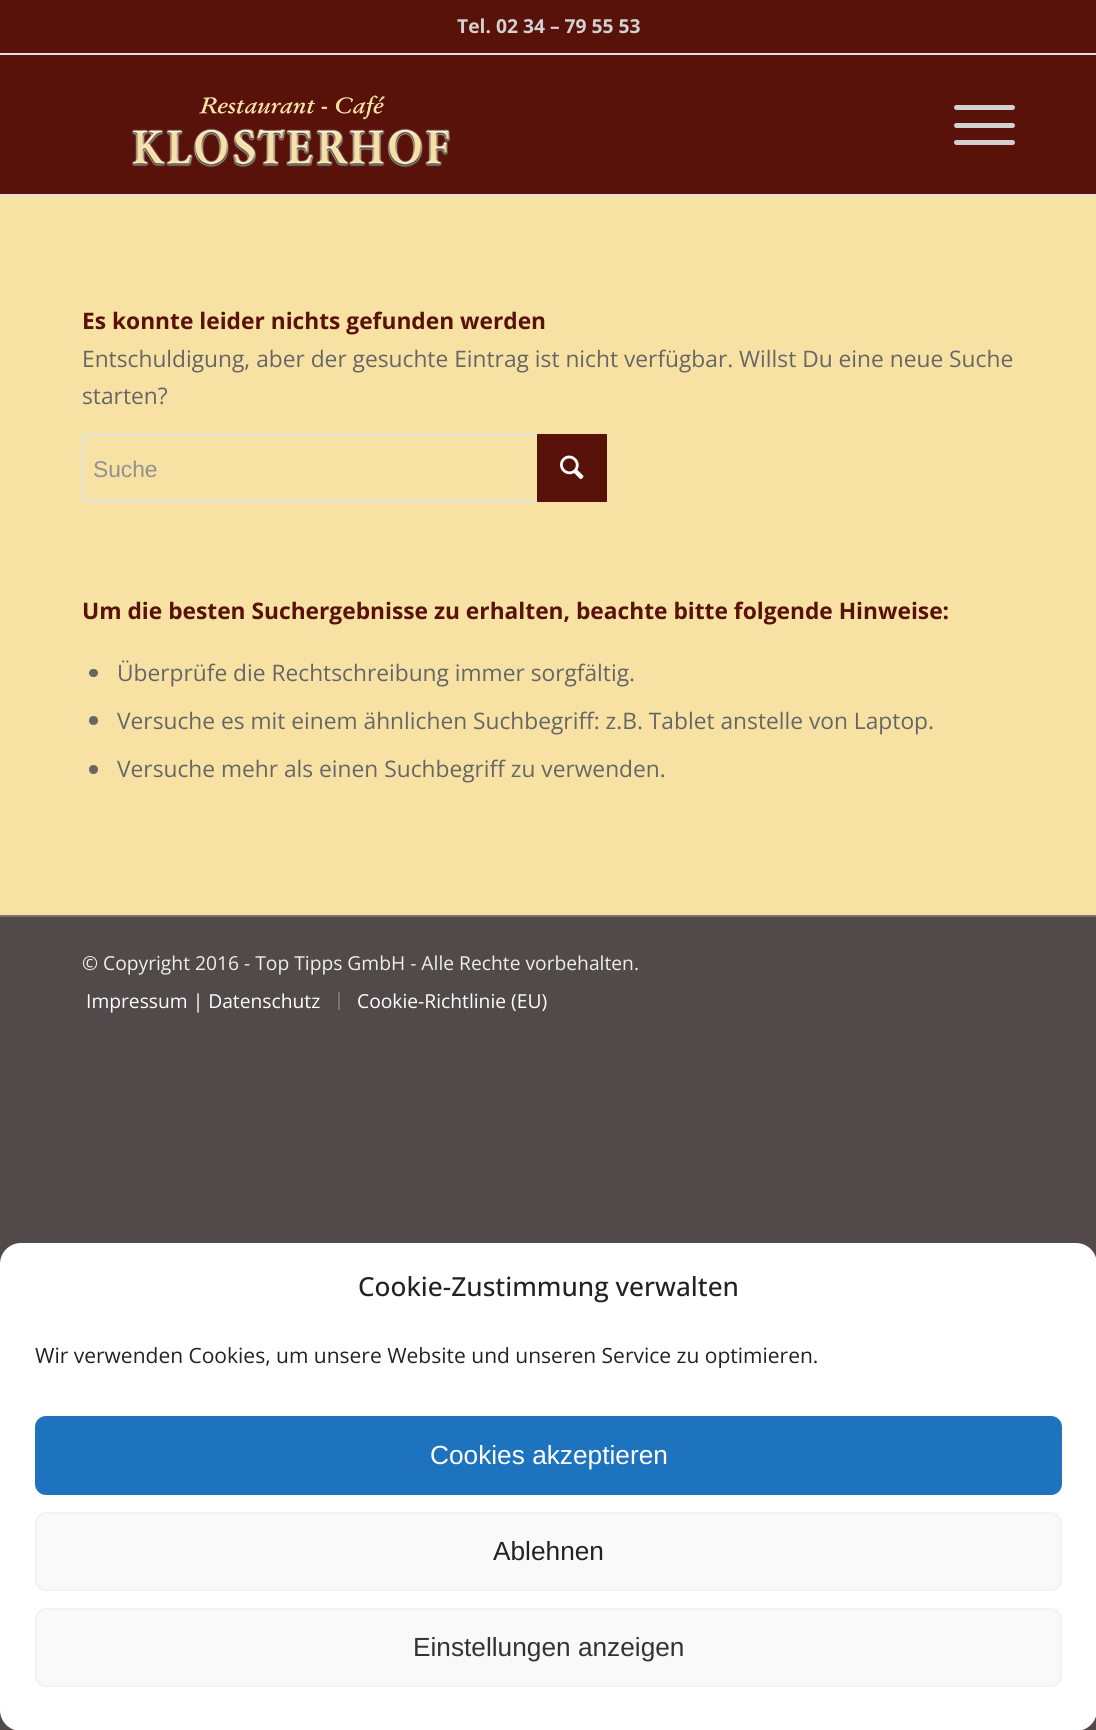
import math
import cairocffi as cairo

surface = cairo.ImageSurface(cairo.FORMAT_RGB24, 1096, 1730)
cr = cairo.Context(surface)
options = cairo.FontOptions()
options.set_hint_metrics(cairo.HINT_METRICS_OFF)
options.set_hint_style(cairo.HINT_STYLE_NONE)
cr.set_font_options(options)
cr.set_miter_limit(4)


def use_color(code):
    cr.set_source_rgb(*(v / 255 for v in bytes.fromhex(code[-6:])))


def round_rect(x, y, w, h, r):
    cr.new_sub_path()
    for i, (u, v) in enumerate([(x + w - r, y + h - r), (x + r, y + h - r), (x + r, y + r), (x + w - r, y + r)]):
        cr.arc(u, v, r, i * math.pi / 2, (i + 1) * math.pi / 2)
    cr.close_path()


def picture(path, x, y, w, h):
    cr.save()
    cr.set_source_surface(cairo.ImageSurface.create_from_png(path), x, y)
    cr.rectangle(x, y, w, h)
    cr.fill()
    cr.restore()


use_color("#524a4a")
cr.paint()
use_color("#59120a")
cr.rectangle(0, 0, 1096, 53)
cr.fill()
use_color("#e1e1e1")
cr.rectangle(0, 53, 1096, 2)
cr.fill()
cr.select_font_face("Open Sans", cairo.FONT_SLANT_NORMAL, cairo.FONT_WEIGHT_BOLD)
cr.set_font_size(19.25)
use_color("#d1d1d1")
cr.move_to(457, 33)
cr.show_text("Tel. 02 34 – 79 55 53")
use_color("#59120a")
cr.rectangle(0, 55, 1096, 139)
cr.fill()
use_color("#e1e1e1")
cr.rectangle(0, 194, 1096, 2)
cr.fill()
picture("img1.png", 131, 95, 320, 73)
use_color("#d1d1d1")
round_rect(954, 123, 61, 5, 2.5)
cr.fill()
round_rect(954, 105, 61, 5, 2.5)
cr.fill()
round_rect(954, 140, 61, 5, 2.5)
cr.fill()
use_color("#f7e2a4")
cr.rectangle(0, 196, 1096, 719)
cr.fill()
cr.set_font_size(22.75)
use_color("#59120a")
cr.move_to(82, 329)
cr.show_text("Es konnte leider nichts gefunden werden")
cr.select_font_face("Open Sans")
use_color("#666666")
cr.move_to(82, 367)
cr.show_text("Entschuldigung, aber der gesuchte Eintrag ist nicht verfügbar. Willst Du eine neue Suche")
cr.move_to(82, 404)
cr.show_text("starten?")
cr.rectangle(83, 435, 523, 66)
use_color("#e1e1e1")
cr.stroke()
cr.select_font_face("Liberation Sans")
use_color("#919191")
cr.move_to(93, 477)
cr.show_text("Suche")
use_color("#59120a")
cr.rectangle(537, 434, 70, 68)
cr.fill()
picture("img2.png", 560, 455, 24, 25)
cr.select_font_face("Open Sans", cairo.FONT_SLANT_NORMAL, cairo.FONT_WEIGHT_BOLD)
cr.move_to(82, 619)
cr.show_text("Um die besten Suchergebnisse zu erhalten, beachte bitte folgende Hinweise:")
use_color("#666666")
round_rect(89, 669, 9, 8, 4)
cr.fill()
cr.select_font_face("Open Sans")
cr.move_to(117, 681)
cr.show_text("Überprüfe die Rechtschreibung immer sorgfältig.")
cr.new_path()
cr.arc(93.5, 720.5, 4.5, 0, 2 * math.pi)
cr.fill()
cr.move_to(117, 729)
cr.show_text("Versuche es mit einem ähnlichen Suchbegriff: z.B. Tablet anstelle von Laptop.")
cr.new_path()
cr.arc(93.5, 769.5, 4.5, 0, 2 * math.pi)
cr.fill()
cr.move_to(117, 777)
cr.show_text("Versuche mehr als einen Suchbegriff zu verwenden.")
use_color("#806e6e")
cr.rectangle(0, 915, 1096, 2)
cr.fill()
cr.set_font_size(19.25)
use_color("#eeeeee")
cr.move_to(82, 970)
cr.show_text("© Copyright 2016 - Top Tipps GmbH - Alle Rechte vorbehalten.")
use_color("#ffffff")
cr.move_to(86, 1008)
cr.show_text("Impressum | Datenschutz")
use_color("#806e6e")
cr.rectangle(338, 992, 2, 18)
cr.fill()
use_color("#ffffff")
cr.move_to(357, 1008)
cr.show_text("Cookie-Richtlinie (EU)")
round_rect(0, 1243, 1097, 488, 21)
cr.fill()
cr.select_font_face("Open Sans Medium")
cr.set_font_size(26.25)
use_color("#222222")
cr.move_to(358, 1296)
cr.show_text("Cookie-Zustimmung verwalten")
cr.select_font_face("Open Sans")
cr.set_font_size(21)
cr.move_to(35, 1363)
cr.show_text("Wir verwenden Cookies, um unsere Website und unseren Service zu optimieren.")
use_color("#1e73be")
round_rect(36, 1417, 1025, 77, 10)
cr.fill_preserve()
cr.stroke()
cr.select_font_face("Liberation Sans")
cr.set_font_size(26.25)
use_color("#ffffff")
cr.move_to(430, 1464)
cr.show_text("Cookies akzeptieren")
use_color("#f9f9f9")
round_rect(36, 1513, 1025, 77, 10)
cr.fill_preserve()
use_color("#f2f2f2")
cr.stroke()
use_color("#222222")
cr.move_to(493, 1560)
cr.show_text("Ablehnen")
use_color("#f9f9f9")
round_rect(36, 1609, 1025, 77, 10)
cr.fill_preserve()
use_color("#f2f2f2")
cr.stroke()
use_color("#333333")
cr.move_to(413, 1656)
cr.show_text("Einstellungen anzeigen")
surface.write_to_png("result.png")
